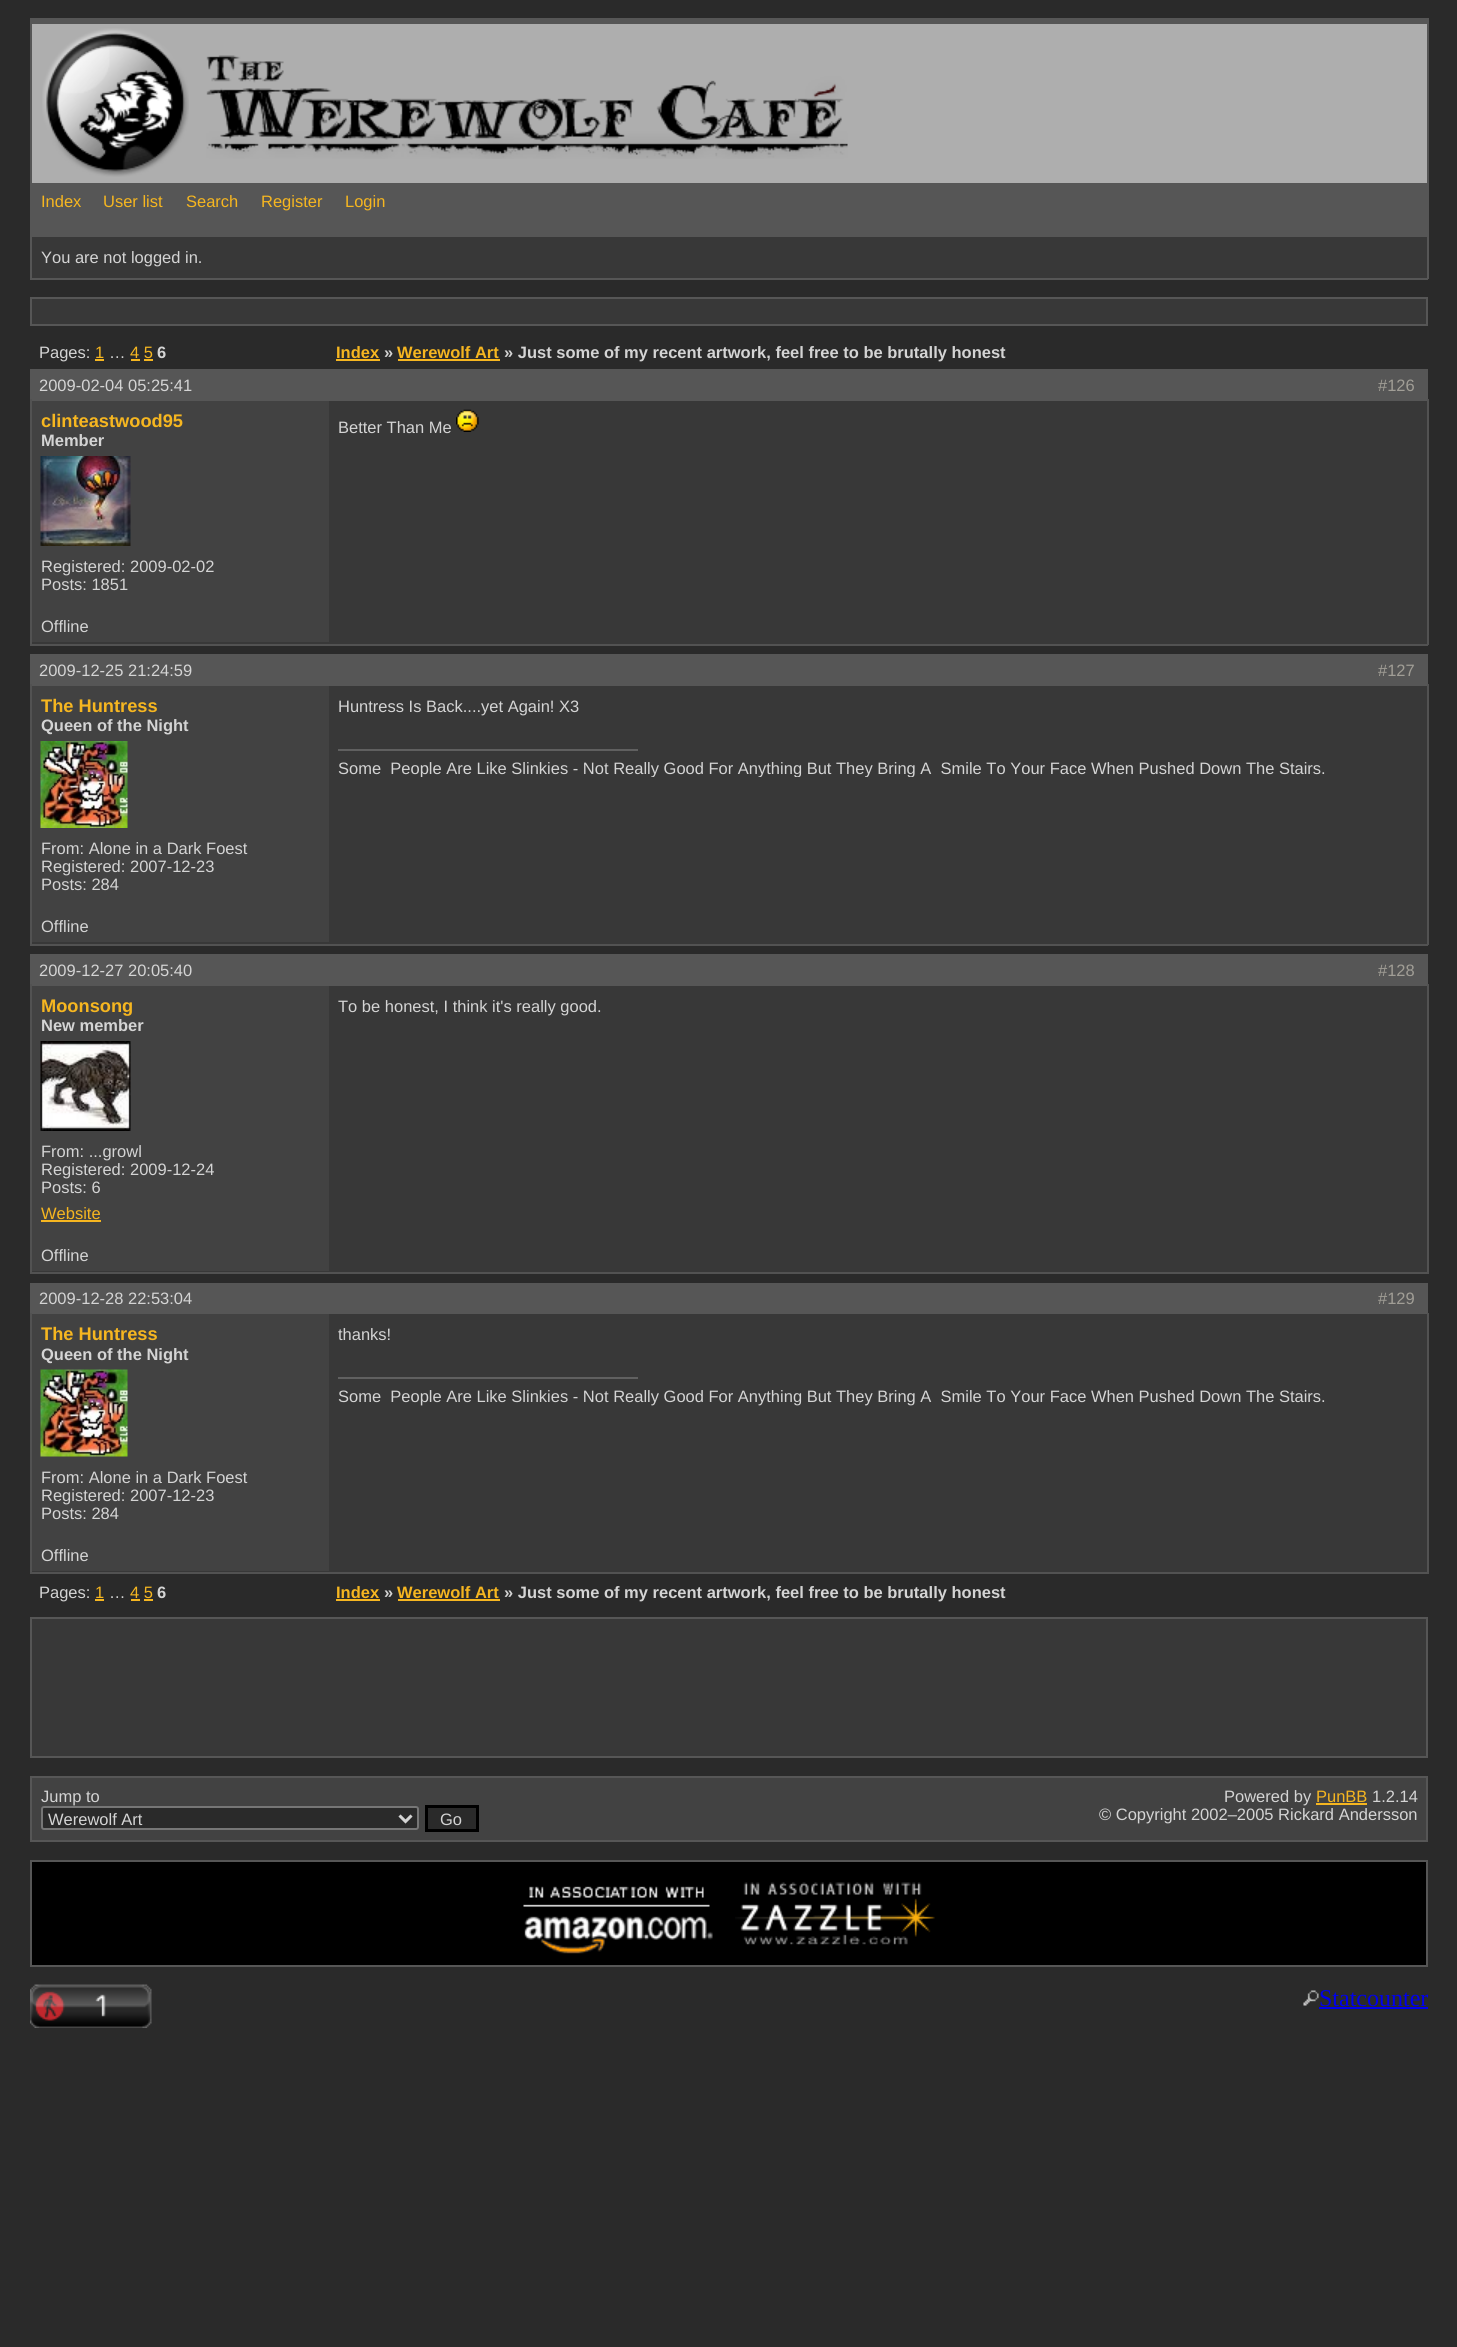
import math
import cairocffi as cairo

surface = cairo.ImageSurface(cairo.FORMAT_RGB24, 1457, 2347)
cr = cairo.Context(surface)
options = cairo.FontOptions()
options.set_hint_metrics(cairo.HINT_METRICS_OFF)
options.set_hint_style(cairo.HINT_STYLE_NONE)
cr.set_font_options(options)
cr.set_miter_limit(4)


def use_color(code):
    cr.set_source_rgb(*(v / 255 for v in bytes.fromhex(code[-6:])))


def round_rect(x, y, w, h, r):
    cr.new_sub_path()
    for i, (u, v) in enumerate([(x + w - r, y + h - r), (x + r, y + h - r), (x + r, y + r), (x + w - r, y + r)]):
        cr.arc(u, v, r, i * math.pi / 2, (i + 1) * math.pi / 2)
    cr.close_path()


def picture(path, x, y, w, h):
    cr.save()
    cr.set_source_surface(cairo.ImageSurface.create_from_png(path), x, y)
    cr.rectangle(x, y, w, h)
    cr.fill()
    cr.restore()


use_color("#2a2a2a")
cr.paint()
use_color("#383838")
cr.rectangle(32, 237, 1395, 41)
cr.fill()
use_color("#565656")
cr.rectangle(30, 18, 1398, 6)
cr.fill()
cr.rectangle(1427, 18, 2, 261)
cr.fill()
cr.rectangle(30, 278, 1398, 2)
cr.fill()
cr.rectangle(30, 18, 2, 261)
cr.fill()
use_color("#aeaeae")
cr.rectangle(32, 24, 1395, 159)
cr.fill()
picture("img1.png", 42, 28, 147, 149)
picture("img2.png", 206, 55, 642, 104)
use_color("#565656")
cr.rectangle(32, 183, 1395, 54)
cr.fill()
cr.select_font_face("Liberation Sans")
cr.set_font_size(16.5)
use_color("#f6b620")
cr.move_to(41, 207)
cr.show_text("Index")
cr.move_to(103, 207)
cr.show_text("User list")
cr.move_to(186, 207)
cr.show_text("Search")
cr.move_to(261, 207)
cr.show_text("Register")
cr.move_to(345, 207)
cr.show_text("Login")
use_color("#d4d4d4")
cr.move_to(41, 263)
cr.show_text("You are not logged in.")
use_color("#383838")
cr.rectangle(31, 298, 1396, 27)
cr.fill_preserve()
use_color("#565656")
cr.stroke()
use_color("#d4d4d4")
cr.move_to(39, 358)
cr.show_text("Pages:")
use_color("#f6b620")
cr.move_to(95, 358)
cr.show_text("1")
cr.rectangle(95, 359, 9, 2)
cr.fill()
use_color("#d4d4d4")
cr.move_to(109, 358)
cr.show_text("…")
use_color("#f6b620")
cr.move_to(130, 358)
cr.show_text("4 5")
cr.rectangle(131, 359, 9, 2)
cr.fill()
cr.select_font_face("Liberation Sans", cairo.FONT_SLANT_NORMAL, cairo.FONT_WEIGHT_BOLD)
use_color("#d4d4d4")
cr.move_to(157, 358)
cr.show_text("6")
use_color("#f6b620")
cr.rectangle(144, 359, 9, 2)
cr.fill()
cr.move_to(336, 358)
cr.show_text("Index")
cr.rectangle(336, 359, 44, 2)
cr.fill()
use_color("#d4d4d4")
cr.move_to(384, 358)
cr.show_text("»")
use_color("#f6b620")
cr.move_to(397, 358)
cr.show_text("Werewolf Art")
cr.rectangle(398, 359, 102, 2)
cr.fill()
use_color("#d4d4d4")
cr.move_to(504, 358)
cr.show_text("» Just some of my recent artwork, feel free to be brutally honest")
use_color("#383838")
cr.rectangle(32, 401, 1395, 243)
cr.fill()
use_color("#565656")
cr.rectangle(30, 369, 1398, 32)
cr.fill()
cr.select_font_face("Liberation Sans")
use_color("#d4d4d4")
cr.move_to(39, 391)
cr.show_text("2009-02-04 05:25:41")
use_color("#a19e96")
cr.move_to(1378, 391)
cr.show_text("#126")
use_color("#525252")
cr.rectangle(1427, 399, 2, 246)
cr.fill()
cr.rectangle(30, 644, 1398, 2)
cr.fill()
cr.rectangle(30, 399, 2, 246)
cr.fill()
use_color("#424242")
cr.rectangle(32, 401, 297, 241)
cr.fill()
cr.select_font_face("Liberation Sans", cairo.FONT_SLANT_NORMAL, cairo.FONT_WEIGHT_BOLD)
cr.set_font_size(18.25)
use_color("#f6b620")
cr.move_to(41, 427)
cr.show_text("clinteastwood95")
cr.set_font_size(16.5)
use_color("#d4d4d4")
cr.move_to(41, 446)
cr.show_text("Member")
picture("img3.png", 40, 456, 91, 90)
cr.select_font_face("Liberation Sans")
cr.move_to(41, 572)
cr.show_text("Registered: 2009-02-02")
cr.move_to(41, 590)
cr.show_text("Posts: 1851")
cr.move_to(338, 433)
cr.show_text("Better Than Me")
picture("img4.png", 456, 409, 23, 23)
cr.move_to(41, 632)
cr.show_text("Offline")
use_color("#383838")
cr.rectangle(32, 686, 1395, 258)
cr.fill()
use_color("#565656")
cr.rectangle(30, 654, 1398, 32)
cr.fill()
use_color("#d4d4d4")
cr.move_to(39, 676)
cr.show_text("2009-12-25 21:24:59")
use_color("#a19e96")
cr.move_to(1378, 676)
cr.show_text("#127")
use_color("#525252")
cr.rectangle(1427, 684, 2, 261)
cr.fill()
cr.rectangle(30, 944, 1398, 2)
cr.fill()
cr.rectangle(30, 684, 2, 261)
cr.fill()
use_color("#424242")
cr.rectangle(32, 686, 297, 256)
cr.fill()
cr.select_font_face("Liberation Sans", cairo.FONT_SLANT_NORMAL, cairo.FONT_WEIGHT_BOLD)
cr.set_font_size(18.25)
use_color("#f6b620")
cr.move_to(41, 712)
cr.show_text("The Huntress")
cr.set_font_size(16.5)
use_color("#d4d4d4")
cr.move_to(41, 731)
cr.show_text("Queen of the Night")
picture("img5.png", 40, 741, 88, 87)
cr.select_font_face("Liberation Sans")
cr.move_to(41, 854)
cr.show_text("From: Alone in a Dark Foest")
cr.move_to(41, 872)
cr.show_text("Registered: 2007-12-23")
cr.move_to(41, 890)
cr.show_text("Posts: 284")
cr.move_to(338, 712)
cr.show_text("Huntress Is Back....yet Again! X3")
use_color("#606060")
cr.rectangle(338, 749, 300, 2)
cr.fill()
cr.save()
cr.rectangle(338, 719, 1080, 58)
cr.clip()
use_color("#d4d4d4")
cr.move_to(338, 774)
cr.show_text("Some  People Are Like Slinkies - Not Really Good For Anything But They Bring A  Smile To Your Face When Pushed Down The Stairs.")
cr.restore()
use_color("#d4d4d4")
cr.move_to(41, 932)
cr.show_text("Offline")
use_color("#383838")
cr.rectangle(32, 986, 1395, 286)
cr.fill()
use_color("#565656")
cr.rectangle(30, 954, 1398, 32)
cr.fill()
use_color("#d4d4d4")
cr.move_to(39, 976)
cr.show_text("2009-12-27 20:05:40")
use_color("#a19e96")
cr.move_to(1378, 976)
cr.show_text("#128")
use_color("#525252")
cr.rectangle(1427, 984, 2, 290)
cr.fill()
cr.rectangle(30, 1272, 1398, 2)
cr.fill()
cr.rectangle(30, 984, 2, 290)
cr.fill()
use_color("#424242")
cr.rectangle(32, 986, 297, 285)
cr.fill()
cr.select_font_face("Liberation Sans", cairo.FONT_SLANT_NORMAL, cairo.FONT_WEIGHT_BOLD)
cr.set_font_size(18.25)
use_color("#f6b620")
cr.move_to(41, 1012)
cr.show_text("Moonsong")
cr.set_font_size(16.5)
use_color("#d4d4d4")
cr.move_to(41, 1031)
cr.show_text("New member")
picture("img6.png", 40, 1041, 91, 90)
cr.select_font_face("Liberation Sans")
cr.move_to(41, 1157)
cr.show_text("From: ...growl")
cr.move_to(41, 1175)
cr.show_text("Registered: 2009-12-24")
cr.move_to(41, 1193)
cr.show_text("Posts: 6")
use_color("#f6b620")
cr.move_to(41, 1219)
cr.show_text("Website")
cr.rectangle(41, 1220, 60, 2)
cr.fill()
use_color("#d4d4d4")
cr.move_to(338, 1012)
cr.show_text("To be honest, I think it's really good.")
cr.move_to(41, 1261)
cr.show_text("Offline")
use_color("#383838")
cr.rectangle(32, 1415, 1395, 157)
cr.fill()
use_color("#565656")
cr.rectangle(30, 1283, 1398, 31)
cr.fill()
use_color("#d4d4d4")
cr.move_to(39, 1304)
cr.show_text("2009-12-28 22:53:04")
use_color("#a19e96")
cr.move_to(1378, 1304)
cr.show_text("#129")
use_color("#525252")
cr.rectangle(1427, 1313, 2, 261)
cr.fill()
cr.rectangle(30, 1572, 1398, 2)
cr.fill()
cr.rectangle(30, 1313, 2, 261)
cr.fill()
use_color("#424242")
cr.rectangle(32, 1314, 297, 257)
cr.fill()
cr.select_font_face("Liberation Sans", cairo.FONT_SLANT_NORMAL, cairo.FONT_WEIGHT_BOLD)
cr.set_font_size(18.25)
use_color("#f6b620")
cr.move_to(41, 1340)
cr.show_text("The Huntress")
cr.set_font_size(16.5)
use_color("#d4d4d4")
cr.move_to(41, 1360)
cr.show_text("Queen of the Night")
picture("img7.png", 40, 1369, 88, 88)
cr.select_font_face("Liberation Sans")
cr.move_to(41, 1483)
cr.show_text("From: Alone in a Dark Foest")
cr.move_to(41, 1501)
cr.show_text("Registered: 2007-12-23")
cr.move_to(41, 1519)
cr.show_text("Posts: 284")
use_color("#383838")
cr.rectangle(329, 1314, 1098, 101)
cr.fill()
use_color("#d4d4d4")
cr.move_to(338, 1340)
cr.show_text("thanks!")
use_color("#606060")
cr.rectangle(338, 1377, 300, 2)
cr.fill()
use_color("#d4d4d4")
cr.move_to(338, 1402)
cr.show_text("Some  People Are Like Slinkies - Not Really Good For Anything But They Bring A  Smile To Your Face When Pushed Down The Stairs.")
cr.move_to(41, 1561)
cr.show_text("Offline")
cr.move_to(39, 1598)
cr.show_text("Pages:")
use_color("#f6b620")
cr.move_to(95, 1598)
cr.show_text("1")
cr.rectangle(95, 1599, 9, 2)
cr.fill()
use_color("#d4d4d4")
cr.move_to(109, 1598)
cr.show_text("…")
use_color("#f6b620")
cr.move_to(130, 1598)
cr.show_text("4 5")
cr.rectangle(131, 1599, 9, 2)
cr.fill()
cr.select_font_face("Liberation Sans", cairo.FONT_SLANT_NORMAL, cairo.FONT_WEIGHT_BOLD)
use_color("#d4d4d4")
cr.move_to(157, 1598)
cr.show_text("6")
use_color("#f6b620")
cr.rectangle(144, 1599, 9, 2)
cr.fill()
cr.move_to(336, 1598)
cr.show_text("Index")
cr.rectangle(336, 1599, 44, 2)
cr.fill()
use_color("#d4d4d4")
cr.move_to(384, 1598)
cr.show_text("»")
use_color("#f6b620")
cr.move_to(397, 1598)
cr.show_text("Werewolf Art")
cr.rectangle(398, 1599, 102, 2)
cr.fill()
use_color("#d4d4d4")
cr.move_to(504, 1598)
cr.show_text("» Just some of my recent artwork, feel free to be brutally honest")
use_color("#383838")
cr.rectangle(31, 1618, 1396, 139)
cr.fill_preserve()
use_color("#565656")
cr.stroke()
use_color("#424242")
cr.rectangle(31, 1777, 1396, 64)
cr.fill_preserve()
use_color("#565656")
cr.stroke()
cr.select_font_face("Liberation Sans")
use_color("#d4d4d4")
cr.move_to(41, 1802)
cr.show_text("Jump to")
use_color("#2a2a2a")
round_rect(42, 1807, 376, 22, 2)
cr.fill_preserve()
use_color("#767676")
cr.stroke()
cr.new_path()
cr.move_to(399.5, 1815.5)
cr.line_to(405.5, 1821.5)
cr.line_to(411.5, 1815.5)
use_color("#d4d4d4")
cr.set_line_width(3)
cr.stroke()
cr.move_to(48, 1825)
cr.show_text("Werewolf Art")
use_color("#2a2a2a")
cr.rectangle(426.5, 1806.5, 51, 24)
cr.fill_preserve()
use_color("#000000")
cr.stroke()
use_color("#d4d4d4")
cr.move_to(440, 1825)
cr.show_text("Go")
cr.move_to(1224, 1802)
cr.show_text("Powered by")
use_color("#f6b620")
cr.move_to(1316, 1802)
cr.show_text("PunBB")
cr.rectangle(1316, 1803, 51, 2)
cr.fill()
use_color("#d4d4d4")
cr.move_to(1372, 1802)
cr.show_text("1.2.14")
cr.move_to(1099, 1820)
cr.show_text("© Copyright 2002–2005 Rickard Andersson")
use_color("#000000")
cr.rectangle(31, 1861, 1396, 105)
cr.fill_preserve()
use_color("#565656")
cr.set_line_width(2)
cr.stroke()
picture("img8.png", 523, 1886, 190, 68)
picture("img9.png", 735, 1882, 200, 63)
picture("img10.png", 30, 1984, 122, 44)
picture("img11.png", 1303, 1990, 16, 16)
cr.select_font_face("Liberation Serif")
cr.set_font_size(24)
use_color("#0000ee")
cr.move_to(1319, 2006)
cr.show_text("Statcounter")
cr.rectangle(1319, 2007, 109, 2)
cr.fill()
surface.write_to_png("result.png")
